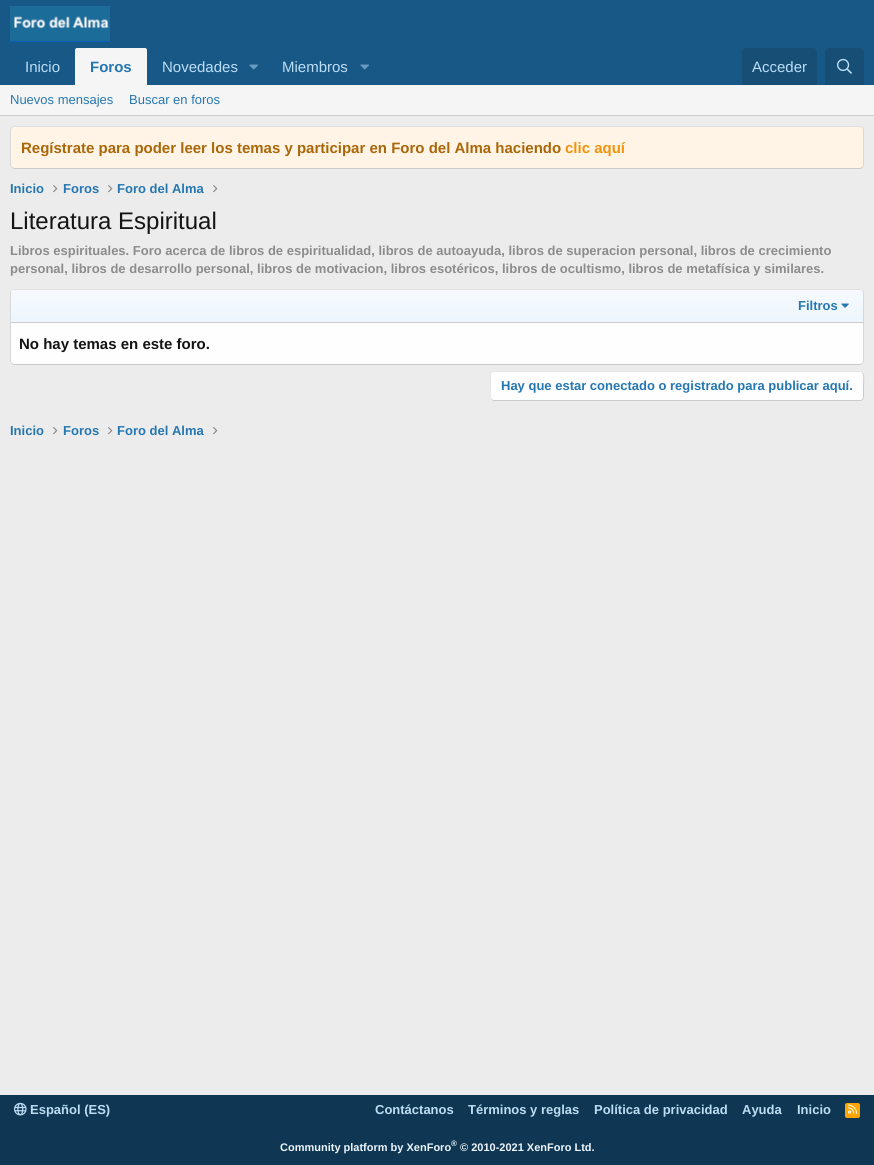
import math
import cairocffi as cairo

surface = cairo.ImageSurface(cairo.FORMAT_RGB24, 874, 1165)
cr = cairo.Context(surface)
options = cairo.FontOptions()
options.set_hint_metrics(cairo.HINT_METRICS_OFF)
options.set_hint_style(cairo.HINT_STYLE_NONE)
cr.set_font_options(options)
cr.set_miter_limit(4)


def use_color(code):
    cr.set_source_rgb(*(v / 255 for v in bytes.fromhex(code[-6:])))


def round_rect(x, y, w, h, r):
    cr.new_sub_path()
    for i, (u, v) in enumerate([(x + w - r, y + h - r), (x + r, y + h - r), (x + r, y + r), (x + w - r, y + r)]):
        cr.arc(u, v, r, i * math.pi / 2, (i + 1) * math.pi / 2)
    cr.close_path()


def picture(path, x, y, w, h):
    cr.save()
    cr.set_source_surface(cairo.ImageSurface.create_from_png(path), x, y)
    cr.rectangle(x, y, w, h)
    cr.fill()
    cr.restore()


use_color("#ececec")
cr.paint()
use_color("#185886")
cr.rectangle(0, 0, 874, 85)
cr.fill()
picture("img1.png", 10, 6, 100, 36)
cr.select_font_face("Liberation Sans")
cr.set_font_size(15)
use_color("#bcdef5")
cr.move_to(25, 72)
cr.show_text("Inicio")
use_color("#f5f5f5")
cr.new_path()
cr.move_to(77, 48)
cr.line_to(145, 48)
cr.curve_to(146, 48, 147, 49, 147, 50)
cr.line_to(147, 85)
cr.line_to(75, 85)
cr.line_to(75, 50)
cr.curve_to(75, 49, 76, 48, 77, 48)
cr.close_path()
cr.fill()
cr.select_font_face("Liberation Sans", cairo.FONT_SLANT_NORMAL, cairo.FONT_WEIGHT_BOLD)
use_color("#2577b1")
cr.move_to(90, 72)
cr.show_text("Foros")
cr.select_font_face("Liberation Sans")
use_color("#bcdef5")
cr.move_to(162, 72)
cr.show_text("Novedades")
picture("img2.png", 249, 64, 9, 6)
cr.move_to(282, 72)
cr.show_text("Miembros")
picture("img2.png", 360, 64, 9, 6)
use_color("#174e75")
cr.new_path()
cr.move_to(746, 48)
cr.line_to(813, 48)
cr.curve_to(815, 48, 817, 50, 817, 52)
cr.line_to(817, 85)
cr.line_to(742, 85)
cr.line_to(742, 52)
cr.curve_to(742, 50, 744, 48, 746, 48)
cr.close_path()
cr.fill()
use_color("#bcdef5")
cr.move_to(752, 72)
cr.show_text("Acceder")
use_color("#174e75")
cr.new_path()
cr.move_to(829, 48)
cr.line_to(860, 48)
cr.curve_to(862, 48, 864, 50, 864, 52)
cr.line_to(864, 85)
cr.line_to(825, 85)
cr.line_to(825, 52)
cr.curve_to(825, 50, 827, 48, 829, 48)
cr.close_path()
cr.fill()
picture("img3.png", 837, 58, 15, 16)
use_color("#f5f5f5")
cr.rectangle(0, 85, 874, 30)
cr.fill()
use_color("#cbcbcb")
cr.rectangle(0, 115, 874, 1)
cr.fill()
cr.set_font_size(13)
use_color("#2577b1")
cr.move_to(10, 104)
cr.show_text("Nuevos mensajes")
cr.move_to(129, 104)
cr.show_text("Buscar en foros")
use_color("#fff4e5")
round_rect(10, 126, 854, 43, 4)
cr.fill()
cr.new_path()
cr.move_to(11.5, 127.5)
cr.line_to(14, 126.5)
cr.line_to(860, 126.5)
cr.line_to(862.5, 127.5)
use_color("#dfdfdf")
cr.set_line_width(1)
cr.stroke()
cr.new_path()
cr.move_to(862.5, 127.5)
cr.curve_to(863, 128, 863.5, 129, 863.5, 130)
cr.line_to(863.5, 165)
cr.curve_to(863.5, 166, 863, 167, 862.5, 167.5)
use_color("#d8d8d8")
cr.stroke()
cr.new_path()
cr.move_to(862.5, 167.5)
cr.line_to(860, 168.5)
cr.line_to(14, 168.5)
cr.line_to(11.5, 167.5)
use_color("#cbcbcb")
cr.stroke()
cr.new_path()
cr.move_to(11.5, 167.5)
cr.curve_to(11, 167, 10.5, 166, 10.5, 165)
cr.line_to(10.5, 130)
cr.curve_to(10.5, 129, 11, 128, 11.5, 127.5)
use_color("#d8d8d8")
cr.stroke()
cr.select_font_face("Liberation Sans", cairo.FONT_SLANT_NORMAL, cairo.FONT_WEIGHT_BOLD)
cr.set_font_size(15)
use_color("#aa6709")
cr.move_to(21, 153)
cr.show_text("Regístrate para poder leer los temas y participar en Foro del Alma haciendo")
use_color("#f2930d")
cr.move_to(565, 153)
cr.show_text("clic aquí")
cr.set_font_size(13)
use_color("#2577b1")
cr.move_to(10, 193)
cr.show_text("Inicio")
picture("img4.png", 53, 185, 5, 8)
cr.move_to(63, 193)
cr.show_text("Foros")
picture("img4.png", 108, 185, 5, 8)
cr.move_to(117, 193)
cr.show_text("Foro del Alma")
picture("img4.png", 213, 185, 5, 8)
cr.select_font_face("Liberation Sans")
cr.set_font_size(24)
use_color("#141414")
cr.move_to(10, 229)
cr.show_text("Literatura Espiritual")
cr.select_font_face("Liberation Sans", cairo.FONT_SLANT_NORMAL, cairo.FONT_WEIGHT_BOLD)
cr.set_font_size(13)
use_color("#8c8c8c")
cr.move_to(10, 255)
cr.show_text("Libros espirituales. Foro acerca de libros de espiritualidad, libros de autoayuda, libros de superacion personal, libros de crecimiento")
cr.move_to(10, 273)
cr.show_text("personal, libros de desarrollo personal, libros de motivacion, libros esotéricos, libros de ocultismo, libros de metafísica y similares.")
use_color("#fefefe")
round_rect(10, 289, 854, 76, 4)
cr.fill()
cr.new_path()
cr.move_to(11.5, 290.5)
cr.line_to(14, 289.5)
cr.line_to(860, 289.5)
cr.line_to(862.5, 290.5)
use_color("#dfdfdf")
cr.stroke()
cr.new_path()
cr.move_to(862.5, 290.5)
cr.line_to(863.5, 292.5)
cr.line_to(863.5, 361.5)
cr.line_to(862.5, 363.5)
use_color("#d8d8d8")
cr.stroke()
cr.new_path()
cr.move_to(862.5, 363.5)
cr.line_to(860, 364.5)
cr.line_to(14, 364.5)
cr.line_to(11.5, 363.5)
use_color("#cbcbcb")
cr.stroke()
cr.new_path()
cr.move_to(11.5, 363.5)
cr.line_to(10.5, 361.5)
cr.line_to(10.5, 292.5)
cr.line_to(11.5, 290.5)
use_color("#d8d8d8")
cr.stroke()
gradient = cairo.LinearGradient(437, 322, 437, 290)
gradient.add_color_stop_rgba(0, 0.929, 0.965, 0.992, 1)
gradient.add_color_stop_rgba(1, 0.965, 0.98, 0.996, 1)
cr.set_source(gradient)
cr.new_path()
cr.move_to(14, 290)
cr.line_to(860, 290)
cr.curve_to(861.5, 290, 863, 291.5, 863, 293)
cr.line_to(863, 322)
cr.line_to(11, 322)
cr.line_to(11, 293)
cr.curve_to(11, 291.5, 12.5, 290, 14, 290)
cr.close_path()
cr.fill()
use_color("#cbcbcb")
cr.rectangle(11, 322, 852, 1)
cr.fill()
use_color("#2577b1")
cr.move_to(798, 310)
cr.show_text("Filtros")
picture("img5.png", 841, 303, 8, 5)
cr.set_font_size(15)
use_color("#141414")
cr.move_to(19, 349)
cr.show_text("No hay temas en este foro.")
use_color("#fefefe")
round_rect(490, 371, 374, 30, 4)
cr.fill()
cr.new_path()
cr.move_to(862.5, 372.5)
cr.curve_to(864.5, 374.5, 863.5, 383, 863.5, 386)
cr.line_to(863.5, 393.5)
cr.curve_to(863.5, 396, 864, 399.5, 861, 400.5)
cr.line_to(493.5, 400.5)
cr.line_to(491.5, 399.5)
use_color("#cbcbcb")
cr.stroke()
cr.new_path()
cr.move_to(491.5, 399.5)
cr.curve_to(489.5, 397.5, 490.5, 389, 490.5, 386)
cr.line_to(490.5, 378.5)
cr.curve_to(490.5, 376, 490, 372.5, 493, 371.5)
cr.line_to(860.5, 371.5)
cr.line_to(862.5, 372.5)
use_color("#e5e5e5")
cr.stroke()
cr.set_font_size(13)
use_color("#2577b1")
cr.move_to(501, 390)
cr.show_text("Hay que estar conectado o registrado para publicar aquí.")
cr.move_to(10, 435)
cr.show_text("Inicio")
picture("img4.png", 53, 427, 5, 8)
cr.move_to(63, 435)
cr.show_text("Foros")
picture("img4.png", 108, 427, 5, 8)
cr.move_to(117, 435)
cr.show_text("Foro del Alma")
picture("img4.png", 213, 427, 5, 8)
use_color("#0f3652")
cr.rectangle(0, 1095, 874, 70)
cr.fill()
picture("img6.png", 14, 1102, 13, 14)
use_color("#bcdef5")
cr.move_to(30, 1114)
cr.show_text("Español (ES)")
cr.move_to(375, 1114)
cr.show_text("Contáctanos")
cr.move_to(468, 1114)
cr.show_text("Términos y reglas")
cr.move_to(594, 1114)
cr.show_text("Política de privacidad")
cr.move_to(742, 1114)
cr.show_text("Ayuda")
cr.move_to(797, 1114)
cr.show_text("Inicio")
use_color("#ffa500")
round_rect(845, 1103, 15, 15, 2)
cr.fill()
picture("img7.png", 848, 1104, 10, 10)
cr.set_font_size(11)
use_color("#edf6fd")
cr.move_to(280, 1151)
cr.show_text("Community platform by XenForo")
cr.set_font_size(8)
cr.move_to(451, 1146)
cr.show_text("®")
cr.set_font_size(11)
cr.move_to(460, 1151)
cr.show_text("© 2010-2021 XenForo Ltd.")
surface.write_to_png("result.png")
